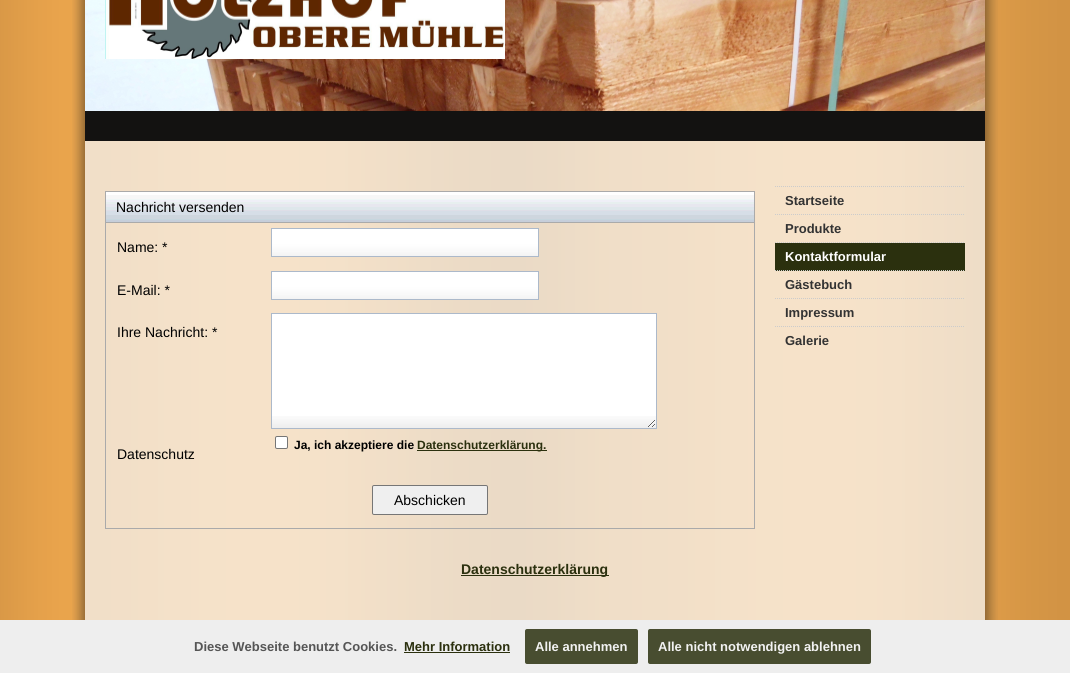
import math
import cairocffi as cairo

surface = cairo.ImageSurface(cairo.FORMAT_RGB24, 1070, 673)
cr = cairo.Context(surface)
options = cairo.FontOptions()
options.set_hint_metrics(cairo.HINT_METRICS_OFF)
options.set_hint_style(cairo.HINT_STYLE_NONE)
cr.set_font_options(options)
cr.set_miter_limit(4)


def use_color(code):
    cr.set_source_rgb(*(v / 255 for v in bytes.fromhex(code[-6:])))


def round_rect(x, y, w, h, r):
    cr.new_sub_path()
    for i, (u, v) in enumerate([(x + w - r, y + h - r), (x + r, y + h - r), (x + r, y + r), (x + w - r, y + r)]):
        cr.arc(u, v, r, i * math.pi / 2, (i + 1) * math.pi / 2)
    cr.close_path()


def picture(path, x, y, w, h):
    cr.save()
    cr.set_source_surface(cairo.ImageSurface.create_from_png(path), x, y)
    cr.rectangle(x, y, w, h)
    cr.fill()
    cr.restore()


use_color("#ffb353")
cr.paint()
picture("img1.png", 0, 0, 1070, 620)
picture("img2.png", 72, 0, 13, 620)
picture("img3.png", 85, 0, 900, 111)
picture("img4.png", 105, 0, 400, 59)
use_color("#131211")
cr.rectangle(85, 111, 900, 30)
cr.fill()
cr.set_source_rgba(0.953, 0.953, 0.953, 0.74)
cr.rectangle(85, 141, 900, 479)
cr.fill()
cr.rectangle(105.5, 191.5, 649, 337)
use_color("#aaaaaa")
cr.set_line_width(1)
cr.stroke()
use_color("#ffffff")
cr.rectangle(106, 192, 648, 3)
cr.fill()
picture("img5.png", 106, 195, 648, 27)
use_color("#aaaaaa")
cr.rectangle(106, 222, 648, 1)
cr.fill()
cr.select_font_face("Liberation Sans")
cr.set_font_size(14)
use_color("#000000")
cr.move_to(116, 212)
cr.show_text("Nachricht versenden")
cr.move_to(117, 252)
cr.show_text("Name: *")
picture("img6.png", 272, 229, 266, 27)
cr.rectangle(271.5, 228.5, 267, 28)
use_color("#acb9ca")
cr.stroke()
use_color("#000000")
cr.move_to(117, 295)
cr.show_text("E-Mail: *")
picture("img6.png", 272, 272, 266, 27)
cr.rectangle(271.5, 271.5, 267, 28)
use_color("#acb9ca")
cr.stroke()
use_color("#000000")
cr.move_to(117, 337)
cr.show_text("Ihre Nachricht: *")
use_color("#ffffff")
cr.rectangle(272, 314, 384, 102)
cr.fill()
picture("img7.png", 272, 416, 384, 12)
cr.rectangle(271.5, 313.5, 385, 115)
use_color("#acb9ca")
cr.stroke()
use_color("#ffffff")
round_rect(275.5, 436.5, 12, 12, 1.5)
cr.fill_preserve()
use_color("#767676")
cr.stroke()
cr.select_font_face("Liberation Sans", cairo.FONT_SLANT_NORMAL, cairo.FONT_WEIGHT_BOLD)
cr.set_font_size(12)
use_color("#000000")
cr.move_to(294, 449)
cr.show_text("Ja, ich akzeptiere die")
use_color("#2b300e")
cr.rectangle(417, 450, 130, 1)
cr.fill()
cr.move_to(417, 449)
cr.show_text("Datenschutzerklärung.")
cr.select_font_face("Liberation Sans")
cr.set_font_size(14)
use_color("#000000")
cr.move_to(117, 459)
cr.show_text("Datenschutz")
use_color("#efefef")
round_rect(372.5, 485.5, 115, 29, 1.5)
cr.fill_preserve()
use_color("#767676")
cr.stroke()
use_color("#000000")
cr.move_to(394, 505)
cr.show_text("Abschicken")
cr.new_path()
cr.move_to(775, 186.5)
cr.line_to(965, 186.5)
use_color("#cccccc")
cr.set_dash([1, 1])
cr.stroke()
cr.new_path()
cr.move_to(775, 214.5)
cr.line_to(965, 214.5)
cr.stroke()
cr.select_font_face("Liberation Sans", cairo.FONT_SLANT_NORMAL, cairo.FONT_WEIGHT_BOLD)
cr.set_font_size(13)
use_color("#333333")
cr.move_to(785, 205)
cr.show_text("Startseite")
cr.new_path()
cr.move_to(775, 242.5)
cr.line_to(965, 242.5)
use_color("#cccccc")
cr.stroke()
use_color("#333333")
cr.move_to(785, 233)
cr.show_text("Produkte")
use_color("#2b300e")
cr.rectangle(775, 243, 190, 28)
cr.fill()
cr.new_path()
cr.move_to(775, 270.5)
cr.line_to(965, 270.5)
use_color("#cccccc")
cr.stroke()
use_color("#ffffff")
cr.move_to(785, 261)
cr.show_text("Kontaktformular")
cr.new_path()
cr.move_to(775, 298.5)
cr.line_to(965, 298.5)
use_color("#cccccc")
cr.stroke()
use_color("#333333")
cr.move_to(785, 289)
cr.show_text("Gästebuch")
cr.new_path()
cr.move_to(775, 326.5)
cr.line_to(965, 326.5)
use_color("#cccccc")
cr.stroke()
use_color("#333333")
cr.move_to(785, 317)
cr.show_text("Impressum")
cr.move_to(785, 345)
cr.show_text("Galerie")
use_color("#2b300e")
cr.rectangle(461, 575, 148, 1)
cr.fill()
cr.set_font_size(14)
cr.move_to(461, 574)
cr.show_text("Datenschutzerklärung")
picture("img8.png", 985, 0, 13, 620)
use_color("#eeeeee")
cr.rectangle(0, 620, 1070, 53)
cr.fill()
cr.set_font_size(13)
use_color("#555555")
cr.move_to(194, 651)
cr.show_text("Diese Webseite benutzt Cookies.")
use_color("#2b300e")
cr.move_to(404, 651)
cr.show_text("Mehr Information")
cr.rectangle(404, 652, 106, 1)
cr.fill()
use_color("#484d30")
round_rect(525, 629, 113, 35, 2)
cr.fill()
use_color("#f2f2f2")
cr.move_to(535, 651)
cr.show_text("Alle annehmen")
use_color("#484d30")
round_rect(648, 629, 223, 35, 2)
cr.fill()
use_color("#f2f2f2")
cr.move_to(658, 651)
cr.show_text("Alle nicht notwendigen ablehnen")
surface.write_to_png("result.png")
